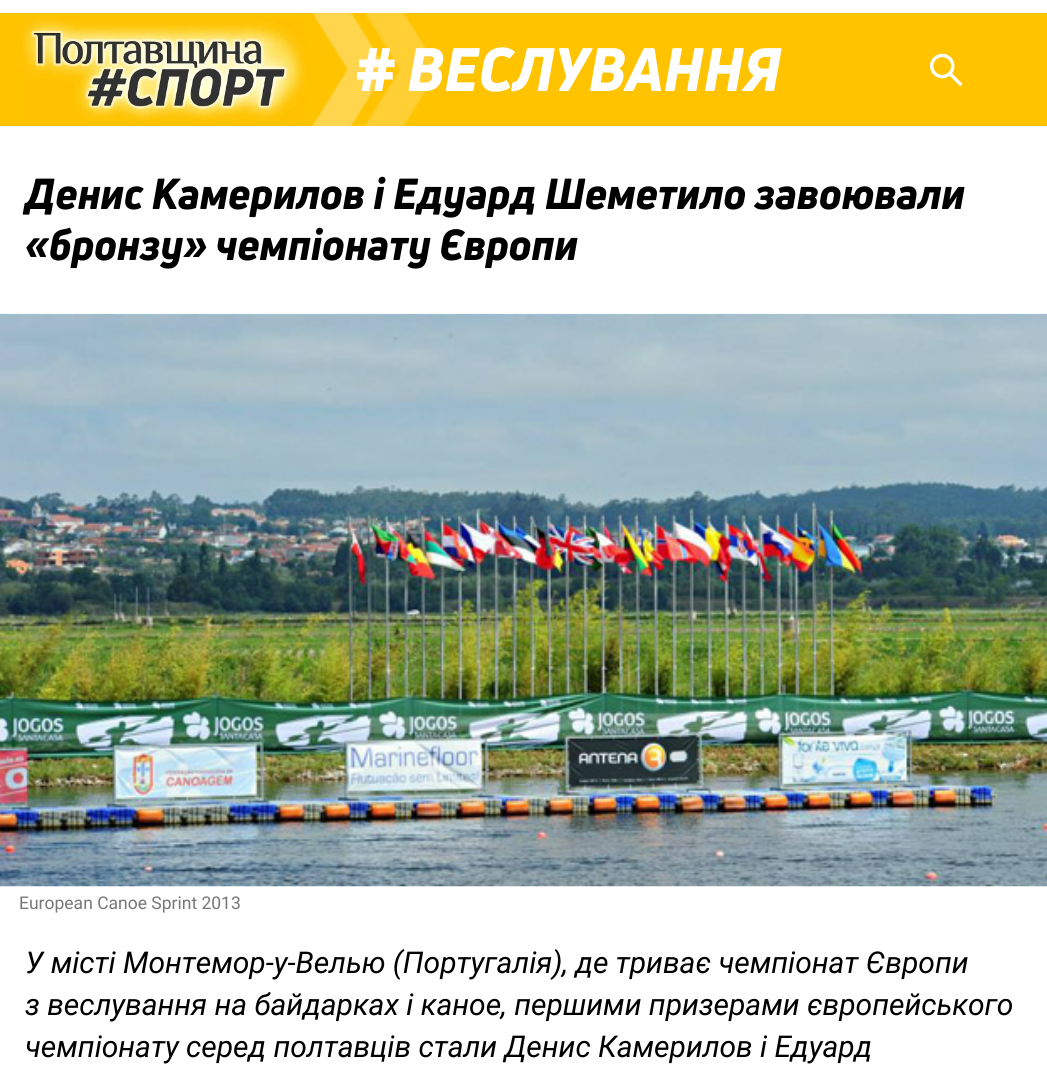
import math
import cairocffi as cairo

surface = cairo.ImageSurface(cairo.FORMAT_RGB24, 1047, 1078)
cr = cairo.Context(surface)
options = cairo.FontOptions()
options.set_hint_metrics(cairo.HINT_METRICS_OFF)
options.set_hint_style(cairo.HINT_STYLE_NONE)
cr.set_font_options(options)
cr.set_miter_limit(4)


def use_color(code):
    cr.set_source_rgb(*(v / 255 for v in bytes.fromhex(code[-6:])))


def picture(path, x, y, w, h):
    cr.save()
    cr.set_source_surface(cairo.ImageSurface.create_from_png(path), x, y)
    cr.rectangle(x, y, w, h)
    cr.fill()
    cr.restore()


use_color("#ffffff")
cr.paint()
use_color("#ffc300")
cr.rectangle(0, 13, 1047, 113)
cr.fill()
picture("img1.png", 312, 13, 127, 113)
picture("img2.png", 21, 18, 285, 103)
cr.select_font_face("Noto Sans Black")
cr.set_font_size(60)
use_color("#ffffff")
cr.move_to(356, 91)
cr.show_text("#")
cr.select_font_face("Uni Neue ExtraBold", cairo.FONT_SLANT_ITALIC)
cr.move_to(407, 91)
cr.show_text("ВЕСЛУВАННЯ")
picture("img3.png", 930, 53, 33, 34)
cr.set_font_size(42.5)
use_color("#000000")
cr.move_to(25, 209)
cr.show_text("Денис Камерилов і Едуард Шеметило завоювали")
cr.move_to(25, 260)
cr.show_text("«бронзу» чемпіонату Європи")
picture("img4.png", 0, 313, 1047, 574)
cr.select_font_face("Roboto")
cr.set_font_size(17.5)
use_color("#777777")
cr.move_to(19, 909)
cr.show_text("European Canoe Sprint 2013")
cr.select_font_face("Roboto", cairo.FONT_SLANT_ITALIC)
cr.set_font_size(30)
use_color("#000000")
cr.move_to(25, 973)
cr.show_text("У місті Монтемор-у-Велью (Португалія), де триває чемпіонат Європи")
cr.move_to(25, 1015)
cr.show_text("з веслування на байдарках і каное, першими призерами європейського")
cr.move_to(25, 1057)
cr.show_text("чемпіонату серед полтавців стали Денис Камерилов і Едуард")
surface.write_to_png("result.png")
